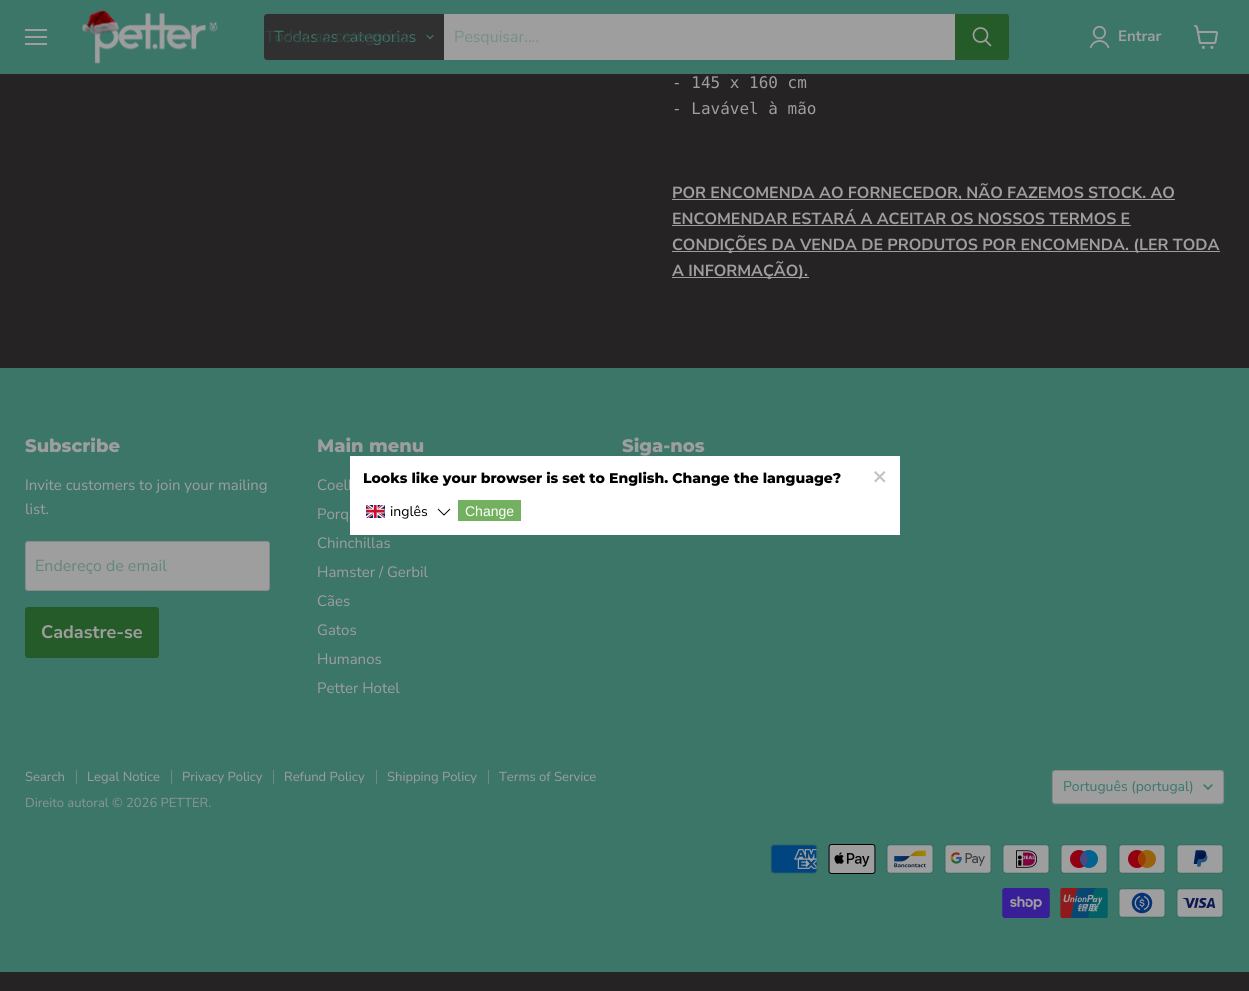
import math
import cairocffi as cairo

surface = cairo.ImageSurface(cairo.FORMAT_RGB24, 1249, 991)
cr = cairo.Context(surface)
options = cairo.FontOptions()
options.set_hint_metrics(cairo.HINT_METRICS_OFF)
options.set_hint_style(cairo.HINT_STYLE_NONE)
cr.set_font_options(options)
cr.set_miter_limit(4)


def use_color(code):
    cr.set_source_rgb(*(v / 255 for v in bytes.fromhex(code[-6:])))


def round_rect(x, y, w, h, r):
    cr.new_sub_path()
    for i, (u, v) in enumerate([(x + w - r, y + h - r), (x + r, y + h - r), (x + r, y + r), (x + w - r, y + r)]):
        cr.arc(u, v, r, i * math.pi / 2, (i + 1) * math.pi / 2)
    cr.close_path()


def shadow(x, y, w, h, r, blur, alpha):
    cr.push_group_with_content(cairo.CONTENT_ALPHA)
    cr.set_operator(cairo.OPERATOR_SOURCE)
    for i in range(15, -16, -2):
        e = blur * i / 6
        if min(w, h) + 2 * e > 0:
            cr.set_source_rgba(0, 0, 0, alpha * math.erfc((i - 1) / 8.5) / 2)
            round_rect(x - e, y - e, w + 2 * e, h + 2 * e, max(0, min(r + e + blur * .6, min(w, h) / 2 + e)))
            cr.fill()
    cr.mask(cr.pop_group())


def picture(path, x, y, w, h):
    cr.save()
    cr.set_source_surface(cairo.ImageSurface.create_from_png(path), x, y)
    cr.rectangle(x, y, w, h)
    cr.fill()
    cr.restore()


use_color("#252323")
cr.paint()
use_color("#3b7669")
cr.rectangle(0, 0, 1249, 74)
cr.fill()
use_color("#9e9e9e")
cr.rectangle(25, 29, 22, 2)
cr.fill()
cr.rectangle(25, 36, 22, 2)
cr.fill()
cr.rectangle(25, 43, 22, 2)
cr.fill()
picture("img1.png", 82, 10, 136, 54)
round_rect(263.5, 13.5, 746, 47, 3.5)
use_color("#427168")
cr.set_line_width(1)
cr.stroke()
use_color("#313030")
cr.new_path()
cr.move_to(267, 14)
cr.line_to(444, 14)
cr.line_to(444, 60)
cr.line_to(267, 60)
cr.curve_to(265.5, 60, 264, 58.5, 264, 57)
cr.line_to(264, 17)
cr.curve_to(264, 15.5, 265.5, 14, 267, 14)
cr.close_path()
cr.fill()
cr.select_font_face("Nunito Sans")
cr.set_font_size(16)
use_color("#3b7669")
cr.move_to(274, 42)
cr.show_text("Todas as categorias")
cr.select_font_face("Liberation Sans")
use_color("#33423f")
cr.move_to(265, 42)
cr.show_text("Todas as categorias")
picture("img2.png", 426, 34, 8, 6)
use_color("#9e9e9e")
cr.rectangle(444, 14, 511, 46)
cr.fill()
cr.select_font_face("Nunito Sans")
use_color("#768e89")
cr.move_to(454, 42)
cr.show_text("Pesquisar....")
use_color("#255b29")
cr.new_path()
cr.move_to(955.5, 14.5)
cr.line_to(1006, 14.5)
cr.curve_to(1007.5, 14.5, 1008.5, 15.5, 1008.5, 17)
cr.line_to(1008.5, 57)
cr.curve_to(1008.5, 58.5, 1007.5, 59.5, 1006, 59.5)
cr.line_to(955.5, 59.5)
cr.close_path()
cr.fill_preserve()
cr.stroke()
cr.new_path()
cr.move_to(990.5, 45.5)
cr.line_to(985.5, 40.5)
use_color("#9e9e9e")
cr.set_line_width(1.7)
cr.set_line_cap(cairo.LINE_CAP_ROUND)
cr.stroke()
cr.arc(980.5, 35, 7, 0, 2 * math.pi)
cr.set_line_cap(cairo.LINE_CAP_BUTT)
cr.stroke()
picture("img3.png", 1089, 25, 21, 24)
cr.select_font_face("Nunito Sans", cairo.FONT_SLANT_NORMAL, cairo.FONT_WEIGHT_BOLD)
cr.set_font_size(15)
cr.move_to(1118, 41)
cr.show_text("Entrar")
picture("img4.png", 1194, 25, 24, 24)
cr.select_font_face("DejaVu Sans Mono")
cr.set_font_size(16)
cr.move_to(672, 88)
cr.show_text("- 145 x 160 cm")
cr.move_to(672, 114)
cr.show_text("- Lavável à mão")
cr.rectangle(672, 199, 503, 1)
cr.fill()
cr.select_font_face("Nunito Sans", cairo.FONT_SLANT_NORMAL, cairo.FONT_WEIGHT_BOLD)
cr.move_to(672, 198)
cr.show_text("POR ENCOMENDA AO FORNECEDOR, NÃO FAZEMOS STOCK. AO")
cr.move_to(672, 224)
cr.show_text("ENCOMENDAR ESTARÁ A ACEITAR OS NOSSOS TERMOS E")
cr.rectangle(672, 225, 459, 1)
cr.fill()
cr.rectangle(672, 251, 548, 1)
cr.fill()
cr.move_to(672, 250)
cr.show_text("CONDIÇÕES DA VENDA DE PRODUTOS POR ENCOMENDA. (LER TODA")
cr.rectangle(672, 277, 137, 1)
cr.fill()
cr.move_to(672, 276)
cr.show_text("A INFORMAÇÃO).")
use_color("#3b7669")
cr.rectangle(0, 368, 1249, 604)
cr.fill()
cr.select_font_face("Montserrat ExtraBold")
cr.set_font_size(18)
use_color("#9e9e9e")
cr.move_to(25, 452)
cr.show_text("Subscribe")
cr.select_font_face("Nunito Sans")
cr.set_font_size(15)
cr.move_to(25, 490)
cr.show_text("Invite customers to join your mailing")
cr.move_to(25, 514)
cr.show_text("list.")
round_rect(25.5, 541.5, 244, 49, 2.5)
cr.fill_preserve()
use_color("#898989")
cr.set_line_width(1)
cr.stroke()
cr.set_font_size(16)
use_color("#63867e")
cr.move_to(35, 571)
cr.show_text("Endereço de email")
use_color("#255b29")
round_rect(25.5, 607.5, 133, 50, 2.5)
cr.fill_preserve()
cr.stroke()
cr.select_font_face("Nunito Sans", cairo.FONT_SLANT_NORMAL, cairo.FONT_WEIGHT_BOLD)
cr.set_font_size(18)
use_color("#9e9e9e")
cr.move_to(41, 638)
cr.show_text("Cadastre-se")
cr.select_font_face("Montserrat ExtraBold")
cr.move_to(317, 452)
cr.show_text("Main menu")
cr.select_font_face("Nunito Sans")
cr.set_font_size(15)
cr.move_to(317, 490)
cr.show_text("Coelh")
cr.move_to(317, 519)
cr.show_text("Porq")
cr.move_to(317, 548)
cr.show_text("Chinchillas")
cr.move_to(317, 577)
cr.show_text("Hamster / Gerbil")
cr.move_to(317, 606)
cr.show_text("Cães")
cr.move_to(317, 635)
cr.show_text("Gatos")
cr.move_to(317, 664)
cr.show_text("Humanos")
cr.move_to(317, 693)
cr.show_text("Petter Hotel")
cr.select_font_face("Montserrat ExtraBold")
cr.set_font_size(18)
cr.move_to(622, 452)
cr.show_text("Siga-nos")
use_color("#6d8a84")
cr.rectangle(76, 770, 1, 14)
cr.fill()
cr.select_font_face("Nunito Sans")
cr.set_font_size(13)
use_color("#9e9e9e")
cr.move_to(25, 781)
cr.show_text("Search")
use_color("#6d8a84")
cr.rectangle(171, 770, 1, 14)
cr.fill()
use_color("#9e9e9e")
cr.move_to(87, 781)
cr.show_text("Legal Notice")
use_color("#6d8a84")
cr.rectangle(273, 770, 1, 14)
cr.fill()
use_color("#9e9e9e")
cr.move_to(182, 781)
cr.show_text("Privacy Policy")
use_color("#6d8a84")
cr.rectangle(376, 770, 1, 14)
cr.fill()
use_color("#9e9e9e")
cr.move_to(284, 781)
cr.show_text("Refund Policy")
use_color("#6d8a84")
cr.rectangle(488, 770, 1, 14)
cr.fill()
use_color("#9e9e9e")
cr.move_to(387, 781)
cr.show_text("Shipping Policy")
cr.move_to(499, 781)
cr.show_text("Terms of Service")
use_color("#8a9694")
cr.move_to(25, 807)
cr.show_text("Direito autoral © 2026 PETTER.")
use_color("#9e9e9e")
shadow(1052, 771, 172, 34, 3, 1, 0.15)
use_color("#9e9e9e")
round_rect(1052.5, 770.5, 171, 33, 2.5)
cr.fill_preserve()
use_color("#898989")
cr.stroke()
cr.set_font_size(14)
use_color("#3b7669")
cr.move_to(1063, 791)
cr.show_text("Português (portugal)")
picture("img5.png", 1203, 784, 10, 6)
picture("img6.png", 770, 844, 48, 30)
picture("img7.png", 828, 844, 48, 30)
picture("img8.png", 886, 844, 48, 30)
picture("img9.png", 944, 844, 48, 30)
picture("img10.png", 1002, 844, 48, 30)
picture("img11.png", 1060, 844, 48, 30)
picture("img12.png", 1118, 844, 48, 30)
picture("img13.png", 1176, 844, 48, 30)
picture("img14.png", 1002, 888, 48, 30)
picture("img15.png", 1060, 888, 48, 30)
picture("img16.png", 1118, 888, 48, 30)
picture("img17.png", 1176, 888, 48, 30)
use_color("#ffffff")
cr.rectangle(350, 456, 550, 79)
cr.fill()
cr.select_font_face("Montserrat ExtraBold")
use_color("#000000")
cr.move_to(363, 483)
cr.show_text("Looks like your browser is set to English. Change the language?")
use_color("#c2c2c2")
cr.new_path()
cr.move_to(884, 471)
cr.line_to(885.5, 472.5)
cr.line_to(875.5, 482.5)
cr.line_to(874, 481)
cr.close_path()
cr.fill()
cr.new_path()
cr.move_to(874, 472.5)
cr.line_to(875.5, 471)
cr.line_to(885.5, 481)
cr.line_to(884, 482.5)
cr.close_path()
cr.fill()
picture("img18.png", 366, 505, 19, 13)
cr.select_font_face("Nunito Sans")
use_color("#000000")
cr.move_to(390, 516)
cr.show_text("inglês")
cr.new_path()
cr.move_to(438, 509)
cr.line_to(444, 515)
cr.line_to(450, 509)
cr.stroke()
use_color("#73b160")
cr.rectangle(458, 500, 63, 21)
cr.fill()
cr.select_font_face("Liberation Sans")
use_color("#ffffff")
cr.move_to(465, 516)
cr.show_text("Change")
surface.write_to_png("result.png")
